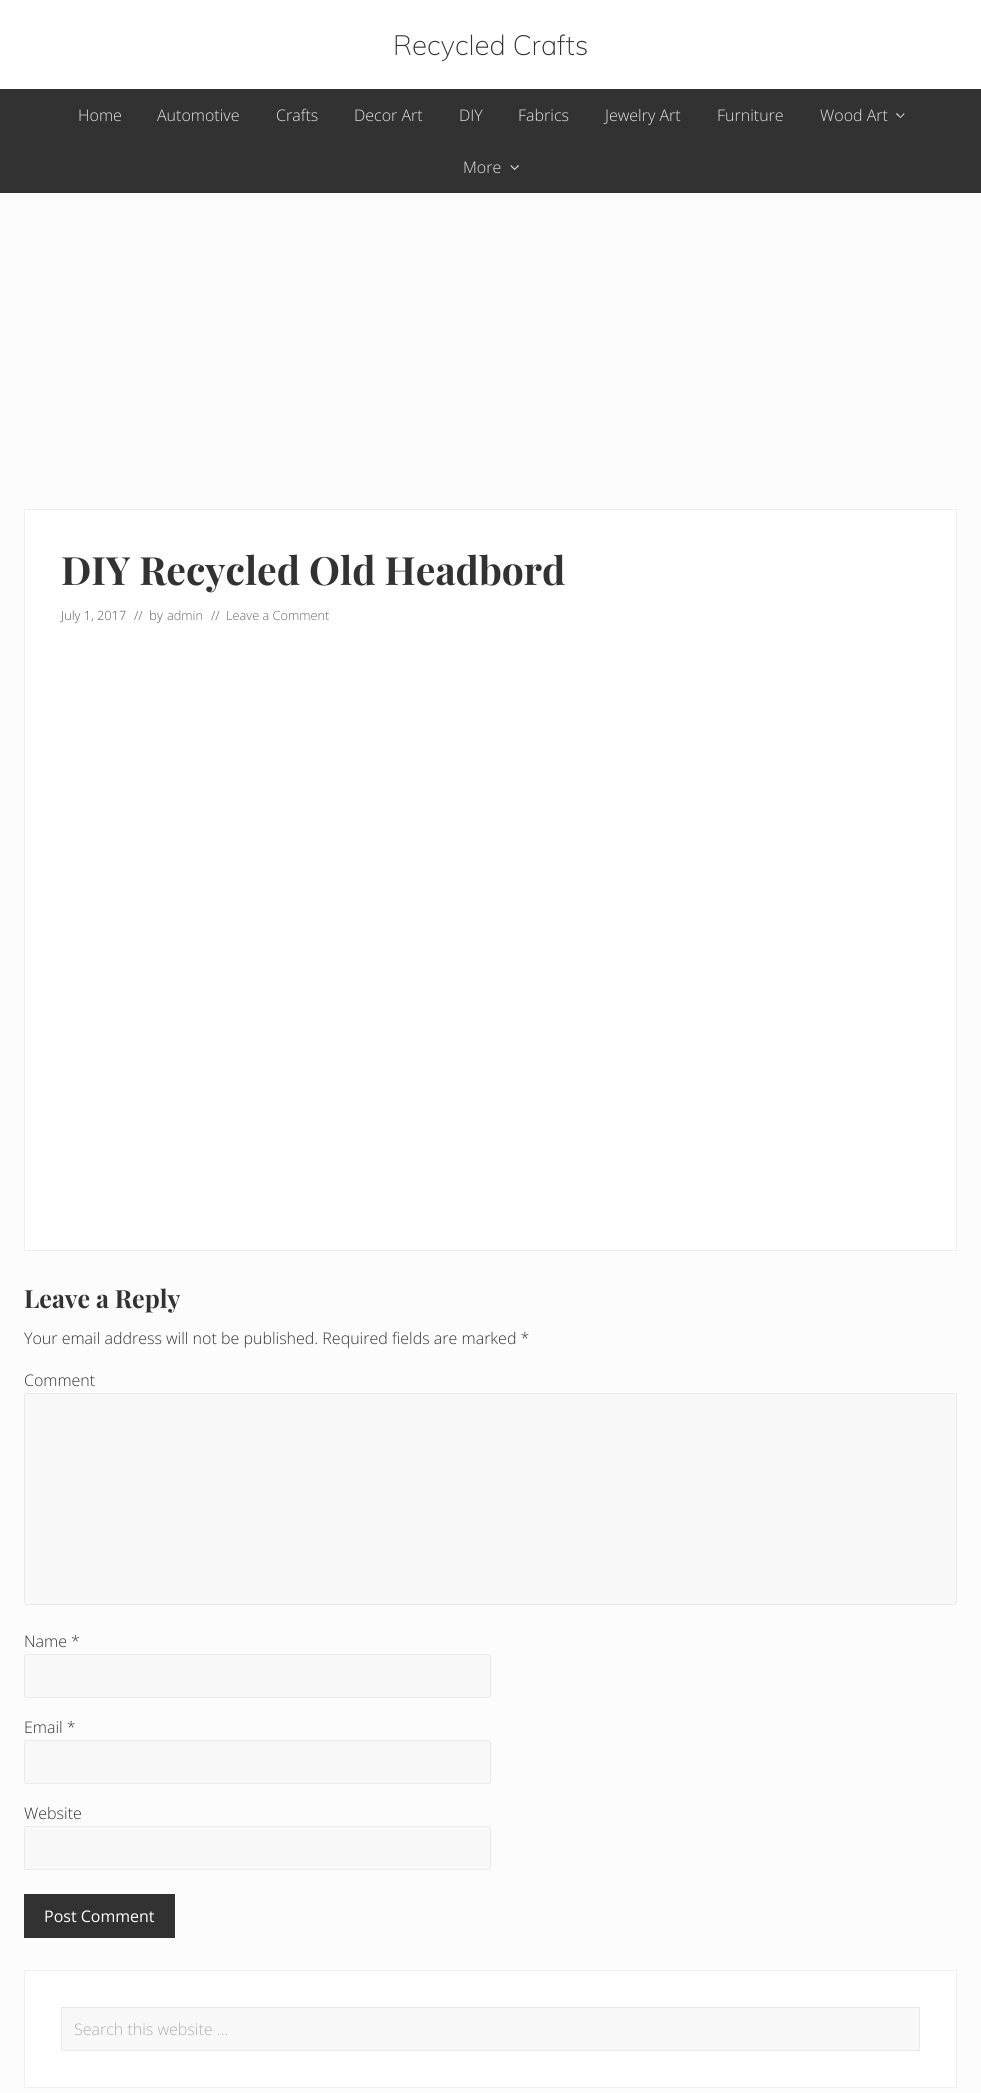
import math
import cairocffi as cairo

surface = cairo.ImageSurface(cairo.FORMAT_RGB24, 981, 2093)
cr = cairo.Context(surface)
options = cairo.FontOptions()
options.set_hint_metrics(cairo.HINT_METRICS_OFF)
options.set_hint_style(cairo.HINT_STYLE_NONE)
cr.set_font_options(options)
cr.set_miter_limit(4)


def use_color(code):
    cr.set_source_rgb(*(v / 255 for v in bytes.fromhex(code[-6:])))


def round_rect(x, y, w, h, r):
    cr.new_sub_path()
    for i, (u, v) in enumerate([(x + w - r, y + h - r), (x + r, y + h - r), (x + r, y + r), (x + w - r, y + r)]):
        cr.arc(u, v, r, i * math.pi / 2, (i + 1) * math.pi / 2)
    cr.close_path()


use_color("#fcfcfc")
cr.paint()
use_color("#ffffff")
cr.rectangle(0, 0, 981, 89)
cr.fill()
cr.select_font_face("Muli ExtraLight")
cr.set_font_size(27.75)
use_color("#323232")
cr.move_to(393, 55)
cr.show_text("Recycled Crafts")
cr.rectangle(0, 89, 981, 104)
cr.fill()
cr.select_font_face("Open Sans Light")
cr.set_font_size(16)
use_color("#e4e4e4")
cr.move_to(78, 121)
cr.show_text("Home")
cr.move_to(157, 121)
cr.show_text("Automotive")
cr.move_to(276, 121)
cr.show_text("Crafts")
cr.move_to(354, 121)
cr.show_text("Decor Art")
cr.move_to(459, 121)
cr.show_text("DIY")
cr.move_to(518, 121)
cr.show_text("Fabrics")
cr.move_to(605, 121)
cr.show_text("Jewelry Art")
cr.move_to(717, 121)
cr.show_text("Furniture")
cr.move_to(820, 121)
cr.show_text("Wood Art")
cr.new_path()
cr.move_to(904, 113)
cr.line_to(904.5, 114)
cr.line_to(900.5, 118)
cr.line_to(900, 117.5)
cr.close_path()
cr.fill()
cr.new_path()
cr.move_to(897, 113)
cr.line_to(901, 117.5)
cr.line_to(900.5, 118)
cr.line_to(896, 114)
cr.close_path()
cr.fill()
cr.move_to(463, 173)
cr.show_text("More")
cr.new_path()
cr.move_to(518, 165)
cr.line_to(519, 166)
cr.line_to(514.5, 170)
cr.line_to(514, 169.5)
cr.close_path()
cr.fill()
cr.new_path()
cr.move_to(511, 165)
cr.line_to(515.5, 169.5)
cr.line_to(514.5, 170)
cr.line_to(510.5, 166)
cr.close_path()
cr.fill()
use_color("#ffffff")
cr.rectangle(24.5, 509.5, 932, 741)
cr.fill_preserve()
use_color("#f0f0f0")
cr.set_line_width(1)
cr.stroke()
cr.select_font_face("Playfair Display", cairo.FONT_SLANT_NORMAL, cairo.FONT_WEIGHT_BOLD)
cr.set_font_size(39)
use_color("#323232")
cr.move_to(61, 585)
cr.show_text("DIY Recycled Old Headbord")
cr.select_font_face("Open Sans Light")
cr.set_font_size(12.75)
use_color("#555555")
cr.move_to(61, 620)
cr.show_text("July 1, 2017")
cr.move_to(134, 620)
cr.show_text("//  by")
use_color("#666666")
cr.move_to(167, 620)
cr.show_text("admin")
use_color("#555555")
cr.move_to(211, 620)
cr.show_text("//")
use_color("#666666")
cr.move_to(226, 620)
cr.show_text("Leave a Comment")
cr.select_font_face("Playfair Display", cairo.FONT_SLANT_NORMAL, cairo.FONT_WEIGHT_BOLD)
cr.set_font_size(25)
use_color("#323232")
cr.move_to(24, 1308)
cr.show_text("Leave a Reply")
cr.select_font_face("Open Sans Light")
cr.set_font_size(16)
cr.move_to(24, 1344)
cr.show_text("Your email address will not be published. Required fields are marked *")
cr.move_to(24, 1386)
cr.show_text("Comment")
use_color("#f8f8f8")
round_rect(24.5, 1393.5, 932, 211, 2.5)
cr.fill_preserve()
use_color("#e9e9e9")
cr.stroke()
use_color("#323232")
cr.move_to(24, 1647)
cr.show_text("Name *")
use_color("#f8f8f8")
round_rect(24.5, 1654.5, 466, 43, 2.5)
cr.fill_preserve()
use_color("#e9e9e9")
cr.stroke()
use_color("#323232")
cr.move_to(24, 1733)
cr.show_text("Email *")
use_color("#f8f8f8")
round_rect(24.5, 1740.5, 466, 43, 2.5)
cr.fill_preserve()
use_color("#e9e9e9")
cr.stroke()
use_color("#323232")
cr.move_to(24, 1819)
cr.show_text("Website")
use_color("#f8f8f8")
round_rect(24.5, 1826.5, 466, 43, 2.5)
cr.fill_preserve()
use_color("#e9e9e9")
cr.stroke()
use_color("#323232")
cr.rectangle(24, 1894, 151, 44)
cr.fill()
cr.select_font_face("Open Sans")
use_color("#ffffff")
cr.move_to(44, 1922)
cr.show_text("Post Comment")
cr.rectangle(24.5, 1970.5, 932, 117)
cr.fill_preserve()
use_color("#f0f0f0")
cr.stroke()
use_color("#f8f8f8")
cr.rectangle(61.5, 2007.5, 858, 43)
cr.fill_preserve()
use_color("#e9e9e9")
cr.stroke()
cr.select_font_face("Open Sans Light")
use_color("#aeaeae")
cr.move_to(74, 2035)
cr.show_text("Search this website …")
surface.write_to_png("result.png")
